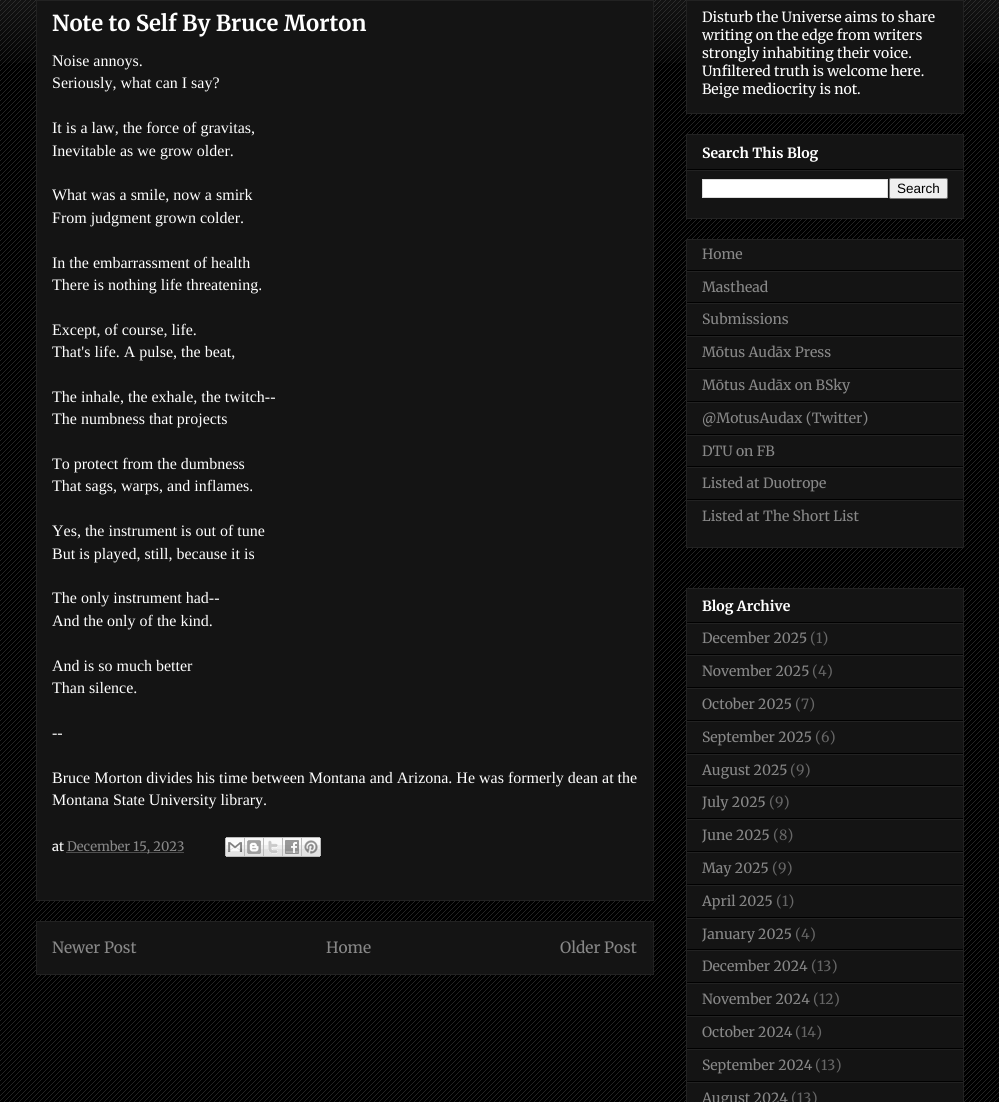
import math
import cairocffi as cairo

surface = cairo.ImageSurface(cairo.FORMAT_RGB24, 999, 1102)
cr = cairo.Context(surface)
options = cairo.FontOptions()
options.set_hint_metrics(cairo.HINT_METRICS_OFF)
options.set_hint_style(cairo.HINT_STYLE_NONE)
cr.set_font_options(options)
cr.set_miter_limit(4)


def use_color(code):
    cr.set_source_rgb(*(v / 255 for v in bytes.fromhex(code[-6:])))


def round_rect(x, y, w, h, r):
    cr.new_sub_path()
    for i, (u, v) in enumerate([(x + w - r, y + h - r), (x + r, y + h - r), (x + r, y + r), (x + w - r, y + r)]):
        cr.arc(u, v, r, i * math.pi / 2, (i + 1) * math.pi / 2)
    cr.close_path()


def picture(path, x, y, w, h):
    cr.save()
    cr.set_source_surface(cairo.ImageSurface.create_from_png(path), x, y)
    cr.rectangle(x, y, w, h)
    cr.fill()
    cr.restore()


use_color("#000000")
cr.paint()
picture("img1.png", 0, 0, 999, 1102)
picture("img2.png", 0, 0, 999, 63)
use_color("#141414")
cr.rectangle(37, 1, 616, 899)
cr.fill()
cr.rectangle(36.5, -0.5, 617, 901)
use_color("#222222")
cr.set_line_width(1)
cr.stroke()
cr.rectangle(37, 0, 616, 1)
cr.fill()
cr.select_font_face("Merriweather", cairo.FONT_SLANT_NORMAL, cairo.FONT_WEIGHT_BOLD)
cr.set_font_size(22)
use_color("#ffffff")
cr.move_to(52, 31)
cr.show_text("Note to Self By Bruce Morton")
cr.select_font_face("Liberation Serif")
cr.set_font_size(16)
cr.move_to(52, 66)
cr.show_text("Noise annoys.")
cr.move_to(52, 88)
cr.show_text("Seriously, what can I say?")
cr.move_to(52, 133)
cr.show_text("It is a law, the force of gravitas,")
cr.move_to(52, 156)
cr.show_text("Inevitable as we grow older.")
cr.move_to(52, 200)
cr.show_text("What was a smile, now a smirk")
cr.move_to(52, 223)
cr.show_text("From judgment grown colder.")
cr.move_to(52, 268)
cr.show_text("In the embarrassment of health")
cr.move_to(52, 290)
cr.show_text("There is nothing life threatening.")
cr.move_to(52, 335)
cr.show_text("Except, of course, life.")
cr.move_to(52, 357)
cr.show_text("That's life. A pulse, the beat,")
cr.move_to(52, 402)
cr.show_text("The inhale, the exhale, the twitch--")
cr.move_to(52, 424)
cr.show_text("The numbness that projects")
cr.move_to(52, 469)
cr.show_text("To protect from the dumbness")
cr.move_to(52, 491)
cr.show_text("That sags, warps, and inflames.")
cr.move_to(52, 536)
cr.show_text("Yes, the instrument is out of tune")
cr.move_to(52, 559)
cr.show_text("But is played, still, because it is")
cr.move_to(52, 603)
cr.show_text("The only instrument had--")
cr.move_to(52, 626)
cr.show_text("And the only of the kind.")
cr.move_to(52, 671)
cr.show_text("And is so much better")
cr.move_to(52, 693)
cr.show_text("Than silence.")
cr.move_to(52, 738)
cr.show_text("--")
cr.move_to(52, 783)
cr.show_text("Bruce Morton divides his time between Montana and Arizona. He was formerly dean at the")
cr.move_to(52, 805)
cr.show_text("Montana State University library.")
cr.select_font_face("Merriweather")
cr.set_font_size(13)
cr.move_to(52, 851)
cr.show_text("at")
cr.new_path()
cr.move_to(66.5, 852.5)
cr.line_to(184, 852.5)
use_color("#888888")
cr.set_dash([1, 1])
cr.stroke()
cr.move_to(67, 851)
cr.show_text("December 15, 2023")
picture("img3.png", 225, 837, 20, 20)
picture("img4.png", 245, 837, 19, 20)
picture("img5.png", 264, 837, 19, 20)
picture("img6.png", 283, 837, 19, 20)
picture("img7.png", 302, 837, 19, 20)
use_color("#141414")
cr.rectangle(36.5, 921.5, 617, 53)
cr.fill_preserve()
use_color("#222222")
cr.set_dash([])
cr.stroke()
cr.set_font_size(15.5)
use_color("#888888")
cr.move_to(52, 953)
cr.show_text("Newer Post")
cr.move_to(326, 953)
cr.show_text("Home")
cr.move_to(560, 953)
cr.show_text("Older Post")
use_color("#141414")
cr.rectangle(687, 1, 276, 112)
cr.fill()
cr.rectangle(686.5, -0.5, 277, 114)
use_color("#222222")
cr.stroke()
cr.rectangle(687, 0, 276, 1)
cr.fill()
cr.set_font_size(14)
use_color("#ffffff")
cr.move_to(702, 22)
cr.show_text("Disturb the Universe aims to share")
cr.move_to(702, 40)
cr.show_text("writing on the edge from writers")
cr.move_to(702, 58)
cr.show_text("strongly inhabiting their voice.")
cr.move_to(702, 76)
cr.show_text("Unfiltered truth is welcome here.")
cr.move_to(702, 94)
cr.show_text("Beige mediocrity is not.")
use_color("#141414")
cr.rectangle(686.5, 134.5, 277, 84)
cr.fill_preserve()
use_color("#222222")
cr.stroke()
use_color("#000000")
cr.rectangle(687, 169, 276, 1)
cr.fill()
cr.select_font_face("Merriweather", cairo.FONT_SLANT_NORMAL, cairo.FONT_WEIGHT_BOLD)
use_color("#ffffff")
cr.move_to(702, 158)
cr.show_text("Search This Blog")
use_color("#222222")
cr.rectangle(687, 170, 276, 1)
cr.fill()
use_color("#ffffff")
cr.rectangle(702.5, 179.5, 185, 18)
cr.fill_preserve()
use_color("#dddddd")
cr.stroke()
use_color("#efefef")
round_rect(889.5, 178.5, 58, 20, 1.5)
cr.fill_preserve()
use_color("#767676")
cr.stroke()
cr.select_font_face("Liberation Sans")
cr.set_font_size(13.5)
use_color("#000000")
cr.move_to(897, 193)
cr.show_text("Search")
use_color("#141414")
cr.rectangle(686.5, 239.5, 277, 308)
cr.fill_preserve()
use_color("#222222")
cr.stroke()
use_color("#000000")
cr.rectangle(687, 270, 276, 1)
cr.fill()
cr.select_font_face("Merriweather")
cr.set_font_size(14)
use_color("#888888")
cr.move_to(702, 259)
cr.show_text("Home")
use_color("#222222")
cr.rectangle(687, 271, 276, 1)
cr.fill()
use_color("#000000")
cr.rectangle(687, 302, 276, 1)
cr.fill()
use_color("#888888")
cr.move_to(702, 292)
cr.show_text("Masthead")
use_color("#222222")
cr.rectangle(687, 303, 276, 1)
cr.fill()
use_color("#000000")
cr.rectangle(687, 335, 276, 1)
cr.fill()
use_color("#888888")
cr.move_to(702, 324)
cr.show_text("Submissions")
use_color("#222222")
cr.rectangle(687, 336, 276, 1)
cr.fill()
use_color("#000000")
cr.rectangle(687, 368, 276, 1)
cr.fill()
use_color("#888888")
cr.move_to(702, 357)
cr.show_text("Mōtus Audāx Press")
use_color("#222222")
cr.rectangle(687, 369, 276, 1)
cr.fill()
use_color("#000000")
cr.rectangle(687, 401, 276, 1)
cr.fill()
use_color("#888888")
cr.move_to(702, 390)
cr.show_text("Mōtus Audāx on BSky")
use_color("#222222")
cr.rectangle(687, 402, 276, 1)
cr.fill()
use_color("#000000")
cr.rectangle(687, 434, 276, 1)
cr.fill()
use_color("#888888")
cr.move_to(702, 423)
cr.show_text("@MotusAudax (Twitter)")
use_color("#222222")
cr.rectangle(687, 435, 276, 1)
cr.fill()
use_color("#000000")
cr.rectangle(687, 466, 276, 1)
cr.fill()
use_color("#888888")
cr.move_to(702, 456)
cr.show_text("DTU on FB")
use_color("#222222")
cr.rectangle(687, 467, 276, 1)
cr.fill()
use_color("#000000")
cr.rectangle(687, 499, 276, 1)
cr.fill()
use_color("#888888")
cr.move_to(702, 488)
cr.show_text("Listed at Duotrope")
use_color("#222222")
cr.rectangle(687, 500, 276, 1)
cr.fill()
use_color("#888888")
cr.move_to(702, 521)
cr.show_text("Listed at The Short List")
use_color("#141414")
cr.rectangle(686.5, 588.5, 277, 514)
cr.fill_preserve()
use_color("#222222")
cr.stroke()
use_color("#000000")
cr.rectangle(687, 622, 276, 1)
cr.fill()
cr.select_font_face("Merriweather", cairo.FONT_SLANT_NORMAL, cairo.FONT_WEIGHT_BOLD)
use_color("#ffffff")
cr.move_to(702, 611)
cr.show_text("Blog Archive")
use_color("#222222")
cr.rectangle(687, 623, 276, 1)
cr.fill()
use_color("#000000")
cr.rectangle(687, 654, 276, 1)
cr.fill()
cr.select_font_face("Merriweather")
use_color("#888888")
cr.move_to(702, 643)
cr.show_text("December 2025")
use_color("#666666")
cr.move_to(810, 643)
cr.show_text("(1)")
use_color("#222222")
cr.rectangle(687, 655, 276, 1)
cr.fill()
use_color("#000000")
cr.rectangle(687, 687, 276, 1)
cr.fill()
use_color("#888888")
cr.move_to(702, 676)
cr.show_text("November 2025")
use_color("#666666")
cr.move_to(812, 676)
cr.show_text("(4)")
use_color("#222222")
cr.rectangle(687, 688, 276, 1)
cr.fill()
use_color("#000000")
cr.rectangle(687, 720, 276, 1)
cr.fill()
use_color("#888888")
cr.move_to(702, 709)
cr.show_text("October 2025")
use_color("#666666")
cr.move_to(795, 709)
cr.show_text("(7)")
use_color("#222222")
cr.rectangle(687, 721, 276, 1)
cr.fill()
use_color("#000000")
cr.rectangle(687, 753, 276, 1)
cr.fill()
use_color("#888888")
cr.move_to(702, 742)
cr.show_text("September 2025")
use_color("#666666")
cr.move_to(815, 742)
cr.show_text("(6)")
use_color("#222222")
cr.rectangle(687, 754, 276, 1)
cr.fill()
use_color("#000000")
cr.rectangle(687, 785, 276, 1)
cr.fill()
use_color("#888888")
cr.move_to(702, 775)
cr.show_text("August 2025")
use_color("#666666")
cr.move_to(790, 775)
cr.show_text("(9)")
use_color("#222222")
cr.rectangle(687, 786, 276, 1)
cr.fill()
use_color("#000000")
cr.rectangle(687, 818, 276, 1)
cr.fill()
use_color("#888888")
cr.move_to(702, 807)
cr.show_text("July 2025")
use_color("#666666")
cr.move_to(769, 807)
cr.show_text("(9)")
use_color("#222222")
cr.rectangle(687, 819, 276, 1)
cr.fill()
use_color("#000000")
cr.rectangle(687, 851, 276, 1)
cr.fill()
use_color("#888888")
cr.move_to(702, 840)
cr.show_text("June 2025")
use_color("#666666")
cr.move_to(773, 840)
cr.show_text("(8)")
use_color("#222222")
cr.rectangle(687, 852, 276, 1)
cr.fill()
use_color("#000000")
cr.rectangle(687, 884, 276, 1)
cr.fill()
use_color("#888888")
cr.move_to(702, 873)
cr.show_text("May 2025")
use_color("#666666")
cr.move_to(772, 873)
cr.show_text("(9)")
use_color("#222222")
cr.rectangle(687, 885, 276, 1)
cr.fill()
use_color("#000000")
cr.rectangle(687, 917, 276, 1)
cr.fill()
use_color("#888888")
cr.move_to(702, 906)
cr.show_text("April 2025")
use_color("#666666")
cr.move_to(776, 906)
cr.show_text("(1)")
use_color("#222222")
cr.rectangle(687, 918, 276, 1)
cr.fill()
use_color("#000000")
cr.rectangle(687, 949, 276, 1)
cr.fill()
use_color("#888888")
cr.move_to(702, 939)
cr.show_text("January 2025")
use_color("#666666")
cr.move_to(795, 939)
cr.show_text("(4)")
use_color("#222222")
cr.rectangle(687, 950, 276, 1)
cr.fill()
use_color("#000000")
cr.rectangle(687, 982, 276, 1)
cr.fill()
use_color("#888888")
cr.move_to(702, 971)
cr.show_text("December 2024")
use_color("#666666")
cr.move_to(811, 971)
cr.show_text("(13)")
use_color("#222222")
cr.rectangle(687, 983, 276, 1)
cr.fill()
use_color("#000000")
cr.rectangle(687, 1015, 276, 1)
cr.fill()
use_color("#888888")
cr.move_to(702, 1004)
cr.show_text("November 2024")
use_color("#666666")
cr.move_to(813, 1004)
cr.show_text("(12)")
use_color("#222222")
cr.rectangle(687, 1016, 276, 1)
cr.fill()
use_color("#000000")
cr.rectangle(687, 1048, 276, 1)
cr.fill()
use_color("#888888")
cr.move_to(702, 1037)
cr.show_text("October 2024")
use_color("#666666")
cr.move_to(795, 1037)
cr.show_text("(14)")
use_color("#222222")
cr.rectangle(687, 1049, 276, 1)
cr.fill()
use_color("#000000")
cr.rectangle(687, 1081, 276, 1)
cr.fill()
use_color("#888888")
cr.move_to(702, 1070)
cr.show_text("September 2024")
use_color("#666666")
cr.move_to(815, 1070)
cr.show_text("(13)")
use_color("#222222")
cr.rectangle(687, 1082, 276, 1)
cr.fill()
use_color("#888888")
cr.move_to(702, 1103)
cr.show_text("August 2024")
use_color("#666666")
cr.move_to(791, 1103)
cr.show_text("(13)")
surface.write_to_png("result.png")
